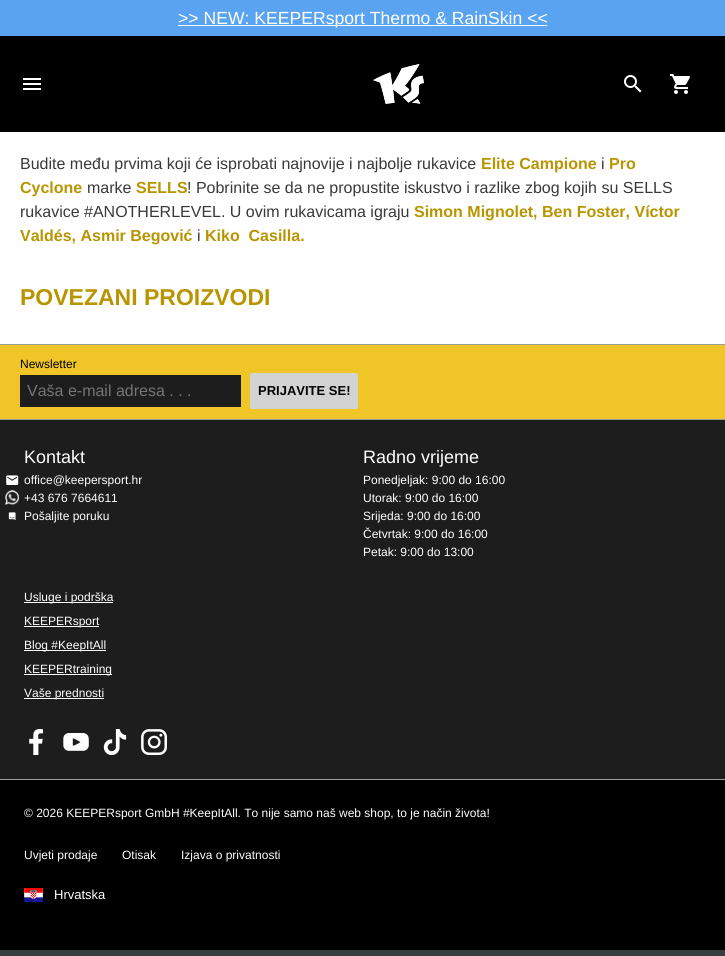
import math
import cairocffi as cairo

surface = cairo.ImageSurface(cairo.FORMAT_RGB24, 725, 956)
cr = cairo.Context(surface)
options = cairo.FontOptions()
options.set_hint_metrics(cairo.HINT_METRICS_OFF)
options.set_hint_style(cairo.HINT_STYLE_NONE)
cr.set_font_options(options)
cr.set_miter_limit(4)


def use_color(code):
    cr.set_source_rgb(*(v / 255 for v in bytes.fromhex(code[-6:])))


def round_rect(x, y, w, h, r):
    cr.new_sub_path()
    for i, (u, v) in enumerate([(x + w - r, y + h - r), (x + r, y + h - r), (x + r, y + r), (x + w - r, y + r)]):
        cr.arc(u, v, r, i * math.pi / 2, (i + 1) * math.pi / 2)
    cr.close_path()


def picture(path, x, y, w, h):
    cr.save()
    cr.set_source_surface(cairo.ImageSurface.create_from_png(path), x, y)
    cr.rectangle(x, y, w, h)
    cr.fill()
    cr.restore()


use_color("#373e3e")
cr.paint()
use_color("#5aa3f0")
cr.rectangle(0, 0, 725, 36)
cr.fill()
use_color("#ffffff")
cr.rectangle(178, 25, 369, 1)
cr.fill()
cr.select_font_face("Liberation Sans")
cr.set_font_size(17.6)
cr.move_to(178, 24)
cr.show_text(">> NEW: KEEPERsport Thermo & RainSkin <<")
use_color("#000000")
cr.rectangle(0, 36, 725, 96)
cr.fill()
picture("img1.png", 23, 78, 18, 12)
picture("img2.png", 373, 64, 51, 40)
picture("img3.png", 624, 75, 18, 18)
picture("img4.png", 670, 74, 20, 20)
use_color("#ffffff")
cr.rectangle(0, 132, 725, 212)
cr.fill()
cr.set_font_size(16)
use_color("#393939")
cr.move_to(20, 169)
cr.show_text("Budite među prvima koji će isprobati najnovije i najbolje rukavice")
cr.select_font_face("Liberation Sans", cairo.FONT_SLANT_NORMAL, cairo.FONT_WEIGHT_BOLD)
use_color("#b89500")
cr.move_to(481, 169)
cr.show_text("Elite Campione")
cr.select_font_face("Liberation Sans")
use_color("#393939")
cr.move_to(601, 169)
cr.show_text("i")
cr.select_font_face("Liberation Sans", cairo.FONT_SLANT_NORMAL, cairo.FONT_WEIGHT_BOLD)
use_color("#b89500")
cr.move_to(609, 169)
cr.show_text("Pro")
cr.move_to(20, 193)
cr.show_text("Cyclone")
cr.select_font_face("Liberation Sans")
use_color("#393939")
cr.move_to(87, 193)
cr.show_text("marke")
cr.select_font_face("Liberation Sans", cairo.FONT_SLANT_NORMAL, cairo.FONT_WEIGHT_BOLD)
use_color("#b89500")
cr.move_to(136, 193)
cr.show_text("SELLS")
cr.select_font_face("Liberation Sans")
use_color("#393939")
cr.move_to(187, 193)
cr.show_text("! Pobrinite se da ne propustite iskustvo i razlike zbog kojih su SELLS")
cr.move_to(20, 217)
cr.show_text("rukavice #ANOTHERLEVEL. U ovim rukavicama igraju")
cr.select_font_face("Liberation Sans", cairo.FONT_SLANT_NORMAL, cairo.FONT_WEIGHT_BOLD)
use_color("#b89500")
cr.move_to(414, 217)
cr.show_text("Simon Mignolet, Ben Foster, Víctor")
cr.move_to(20, 241)
cr.show_text("Valdés, Asmir Begović")
cr.select_font_face("Liberation Sans")
use_color("#393939")
cr.move_to(197, 241)
cr.show_text("i")
cr.select_font_face("Liberation Sans", cairo.FONT_SLANT_NORMAL, cairo.FONT_WEIGHT_BOLD)
use_color("#b89500")
cr.move_to(205, 241)
cr.show_text("Kiko  Casilla.")
cr.set_font_size(23)
cr.move_to(20, 305)
cr.show_text("POVEZANI PROIZVODI")
use_color("#1d1d1d")
cr.rectangle(0, 420, 725, 359)
cr.fill()
use_color("#efc527")
cr.rectangle(0, 345, 725, 74)
cr.fill()
use_color("#979ea0")
cr.rectangle(0, 344, 725, 1)
cr.fill()
cr.select_font_face("Liberation Sans")
cr.set_font_size(12)
use_color("#000000")
cr.move_to(20, 368)
cr.show_text("Newsletter")
use_color("#1d1d1d")
cr.rectangle(20, 375, 221, 32)
cr.fill()
cr.set_font_size(16)
use_color("#757575")
cr.move_to(27, 396)
cr.show_text("Vaša e-mail adresa . . .")
use_color("#d3d3d3")
round_rect(250, 373, 108, 36, 2)
cr.fill()
cr.select_font_face("Liberation Sans", cairo.FONT_SLANT_NORMAL, cairo.FONT_WEIGHT_BOLD)
cr.set_font_size(13)
use_color("#000000")
cr.move_to(258, 395)
cr.show_text("PRIJAVITE SE!")
use_color("#979ea0")
cr.rectangle(0, 419, 725, 1)
cr.fill()
cr.select_font_face("Liberation Sans")
cr.set_font_size(18)
use_color("#ffffff")
cr.move_to(24, 463)
cr.show_text("Kontakt")
picture("img5.png", 6, 475, 13, 10)
cr.set_font_size(12)
cr.move_to(24, 484)
cr.show_text("office@keepersport.hr")
picture("img6.png", 5, 490, 14, 15)
cr.move_to(24, 502)
cr.show_text("+43 676 7664611")
picture("img7.png", 8, 512, 8, 8)
cr.move_to(24, 520)
cr.show_text("Pošaljite poruku")
cr.set_font_size(18)
cr.move_to(363, 463)
cr.show_text("Radno vrijeme")
cr.set_font_size(12)
cr.move_to(363, 484)
cr.show_text("Ponedjeljak: 9:00 do 16:00")
cr.move_to(363, 502)
cr.show_text("Utorak: 9:00 do 16:00")
cr.move_to(363, 520)
cr.show_text("Srijeda: 9:00 do 16:00")
cr.move_to(363, 538)
cr.show_text("Četvrtak: 9:00 do 16:00")
cr.move_to(363, 556)
cr.show_text("Petak: 9:00 do 13:00")
cr.rectangle(24, 602, 89, 1)
cr.fill()
cr.move_to(24, 601)
cr.show_text("Usluge i podrška")
cr.rectangle(24, 626, 75, 1)
cr.fill()
cr.move_to(24, 625)
cr.show_text("KEEPERsport")
cr.rectangle(24, 650, 82, 1)
cr.fill()
cr.move_to(24, 649)
cr.show_text("Blog #KeepItAll")
cr.rectangle(24, 674, 88, 1)
cr.fill()
cr.move_to(24, 673)
cr.show_text("KEEPERtraining")
cr.rectangle(24, 698, 80, 1)
cr.fill()
cr.move_to(24, 697)
cr.show_text("Vaše prednosti")
picture("img8.png", 29, 729, 14, 26)
picture("img9.png", 63, 733, 26, 18)
picture("img10.png", 103, 729, 24, 26)
picture("img11.png", 141, 729, 26, 26)
use_color("#000000")
cr.rectangle(0, 780, 725, 170)
cr.fill()
use_color("#979ea0")
cr.rectangle(0, 779, 725, 1)
cr.fill()
use_color("#ffffff")
cr.move_to(24, 817)
cr.show_text("© 2026 KEEPERsport GmbH #KeepItAll. To nije samo naš web shop, to je način života!")
cr.move_to(24, 859)
cr.show_text("Uvjeti prodaje")
cr.move_to(122, 859)
cr.show_text("Otisak")
cr.move_to(181, 859)
cr.show_text("Izjava o privatnosti")
picture("img12.png", 24, 888, 19, 14)
cr.set_font_size(13)
cr.move_to(54, 899)
cr.show_text("Hrvatska")
surface.write_to_png("result.png")
